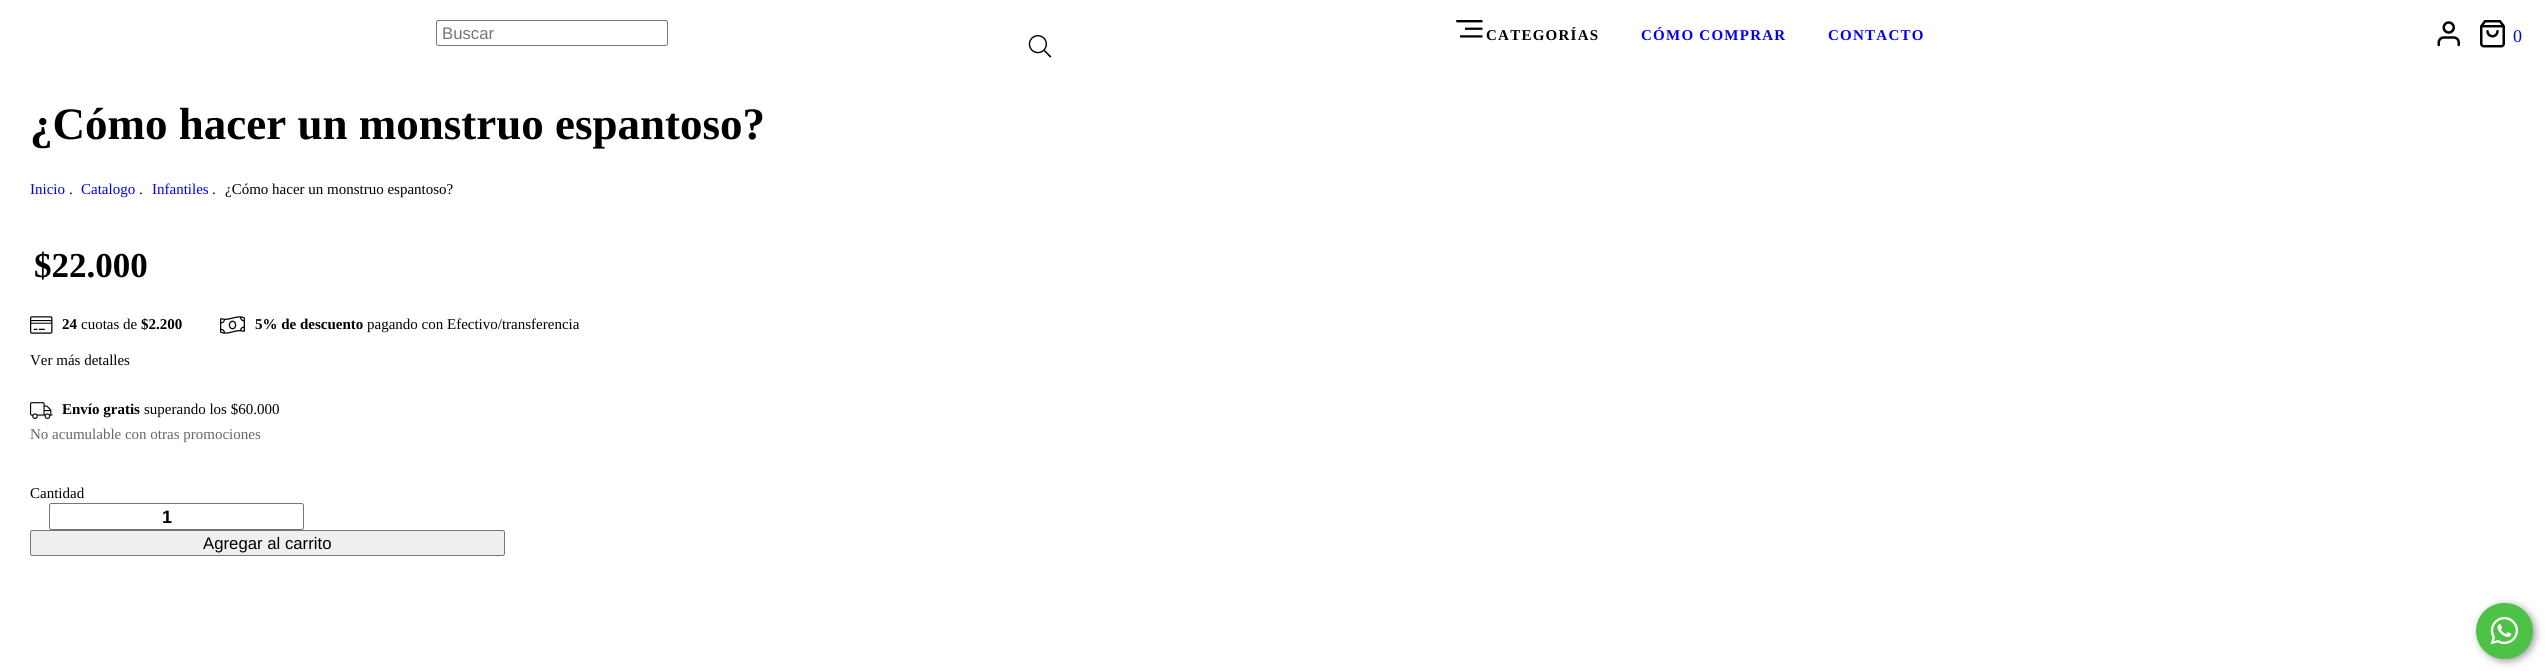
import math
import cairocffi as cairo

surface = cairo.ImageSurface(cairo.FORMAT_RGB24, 2545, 671)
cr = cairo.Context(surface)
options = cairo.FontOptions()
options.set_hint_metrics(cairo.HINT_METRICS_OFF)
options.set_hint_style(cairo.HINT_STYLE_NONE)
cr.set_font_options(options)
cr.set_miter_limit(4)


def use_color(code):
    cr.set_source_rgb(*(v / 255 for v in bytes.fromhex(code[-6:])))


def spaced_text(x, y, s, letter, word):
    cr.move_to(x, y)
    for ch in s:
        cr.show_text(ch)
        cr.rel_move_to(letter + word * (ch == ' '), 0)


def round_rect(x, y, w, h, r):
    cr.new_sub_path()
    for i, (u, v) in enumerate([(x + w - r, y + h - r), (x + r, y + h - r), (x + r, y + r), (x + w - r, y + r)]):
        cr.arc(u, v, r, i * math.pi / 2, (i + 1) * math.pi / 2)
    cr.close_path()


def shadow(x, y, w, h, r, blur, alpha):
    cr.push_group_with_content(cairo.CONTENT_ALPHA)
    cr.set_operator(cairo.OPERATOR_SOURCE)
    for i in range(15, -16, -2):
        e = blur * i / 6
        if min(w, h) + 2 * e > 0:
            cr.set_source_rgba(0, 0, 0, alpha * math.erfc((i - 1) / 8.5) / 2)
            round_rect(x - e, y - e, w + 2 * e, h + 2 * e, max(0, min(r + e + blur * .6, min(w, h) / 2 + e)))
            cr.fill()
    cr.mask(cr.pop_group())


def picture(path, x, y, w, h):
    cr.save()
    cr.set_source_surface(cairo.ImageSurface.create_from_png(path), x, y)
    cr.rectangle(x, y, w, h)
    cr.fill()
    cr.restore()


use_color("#ffffff")
cr.paint()
round_rect(436.5, 20.5, 231, 25, 2)
use_color("#767676")
cr.set_line_width(1)
cr.stroke()
cr.select_font_face("Liberation Sans")
cr.set_font_size(16.75)
use_color("#757575")
cr.move_to(442, 39)
cr.show_text("Buscar")
picture("img1.png", 1028, 35, 24, 23)
picture("img2.png", 1456, 20, 27, 18)
cr.select_font_face("Liberation Serif", cairo.FONT_SLANT_NORMAL, cairo.FONT_WEIGHT_BOLD)
cr.set_font_size(15)
use_color("#000000")
spaced_text(1486, 40, "CATEGORÍAS", 1.25, 0)
use_color("#0000ee")
spaced_text(1641, 40, "CÓMO COMPRAR", 1.25, 0)
spaced_text(1828, 40, "CONTACTO", 1.25, 0)
picture("img3.png", 2437, 21, 23, 26)
picture("img4.png", 2480, 20, 25, 28)
cr.select_font_face("Liberation Serif")
cr.set_font_size(18)
cr.move_to(2513, 42)
cr.show_text("0")
cr.select_font_face("Liberation Serif", cairo.FONT_SLANT_NORMAL, cairo.FONT_WEIGHT_BOLD)
cr.set_font_size(45)
use_color("#000000")
cr.move_to(30, 139)
cr.show_text("¿Cómo hacer un monstruo espantoso?")
cr.select_font_face("Liberation Serif")
cr.set_font_size(15)
use_color("#0000ee")
cr.move_to(30, 194)
cr.show_text("Inicio")
use_color("#000000")
cr.move_to(69, 194)
cr.show_text(".")
use_color("#0000ee")
cr.move_to(81, 194)
cr.show_text("Catalogo")
use_color("#000000")
cr.move_to(139, 194)
cr.show_text(".")
use_color("#0000ee")
cr.move_to(152, 194)
cr.show_text("Infantiles")
use_color("#000000")
cr.move_to(212, 194)
cr.show_text(".")
cr.move_to(225, 194)
cr.show_text("¿Cómo hacer un monstruo espantoso?")
cr.select_font_face("Liberation Serif", cairo.FONT_SLANT_NORMAL, cairo.FONT_WEIGHT_BOLD)
cr.set_font_size(35)
cr.move_to(34, 277)
cr.show_text("$22.000")
picture("img5.png", 30, 316, 23, 18)
cr.set_font_size(15)
cr.move_to(62, 329)
cr.show_text("24")
cr.select_font_face("Liberation Serif")
cr.move_to(81, 329)
cr.show_text("cuotas de")
cr.select_font_face("Liberation Serif", cairo.FONT_SLANT_NORMAL, cairo.FONT_WEIGHT_BOLD)
cr.move_to(141, 329)
cr.show_text("$2.200")
picture("img6.png", 220, 316, 25, 18)
cr.move_to(255, 329)
cr.show_text("5% de descuento")
cr.select_font_face("Liberation Serif")
cr.move_to(367, 329)
cr.show_text("pagando con Efectivo/transferencia")
cr.move_to(30, 365)
cr.show_text("Ver más detalles")
picture("img7.png", 30, 402, 23, 17)
cr.select_font_face("Liberation Serif", cairo.FONT_SLANT_NORMAL, cairo.FONT_WEIGHT_BOLD)
cr.move_to(62, 414)
cr.show_text("Envío gratis")
cr.select_font_face("Liberation Serif")
cr.move_to(144, 414)
cr.show_text("superando los $60.000")
use_color("#666666")
cr.move_to(30, 439)
cr.show_text("No acumulable con otras promociones")
use_color("#000000")
cr.move_to(30, 498)
cr.show_text("Cantidad")
round_rect(49.5, 503.5, 254, 26, 2)
use_color("#767676")
cr.stroke()
cr.select_font_face("Liberation Sans", cairo.FONT_SLANT_NORMAL, cairo.FONT_WEIGHT_BOLD)
cr.set_font_size(18)
use_color("#000000")
cr.move_to(162, 523)
cr.show_text("1")
use_color("#efefef")
round_rect(30.5, 530.5, 474, 25, 2)
cr.fill_preserve()
use_color("#767676")
cr.stroke()
cr.select_font_face("Liberation Sans")
cr.set_font_size(16.75)
use_color("#000000")
cr.move_to(203, 549)
cr.show_text("Agregar al carrito")
use_color("#000000")
shadow(2479, 605, 56, 56, 28, 4, 0.4)
use_color("#4dc247")
round_rect(2476, 603, 57, 56, 28)
cr.fill()
picture("img8.png", 2490, 617, 28, 28)
surface.write_to_png("result.png")
